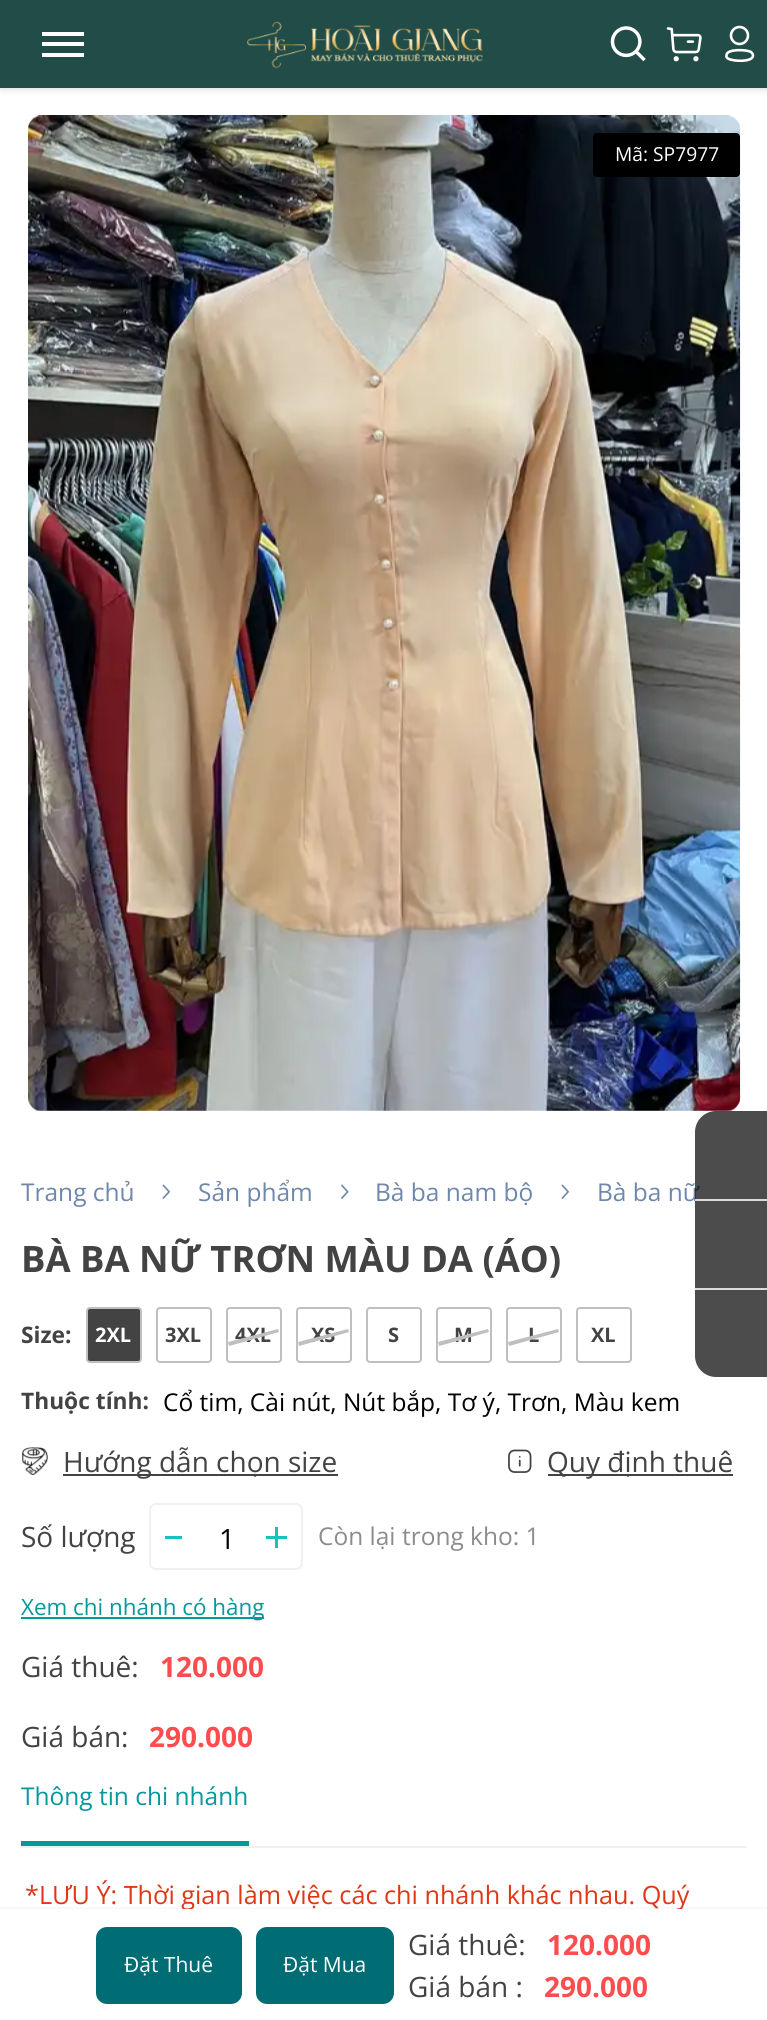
import math
import cairocffi as cairo

surface = cairo.ImageSurface(cairo.FORMAT_RGB24, 767, 2020)
cr = cairo.Context(surface)
options = cairo.FontOptions()
options.set_hint_metrics(cairo.HINT_METRICS_OFF)
options.set_hint_style(cairo.HINT_STYLE_NONE)
cr.set_font_options(options)
cr.set_miter_limit(4)


def use_color(code):
    cr.set_source_rgb(*(v / 255 for v in bytes.fromhex(code[-6:])))


def round_rect(x, y, w, h, r):
    cr.new_sub_path()
    for i, (u, v) in enumerate([(x + w - r, y + h - r), (x + r, y + h - r), (x + r, y + r), (x + w - r, y + r)]):
        cr.arc(u, v, r, i * math.pi / 2, (i + 1) * math.pi / 2)
    cr.close_path()


def shadow(x, y, w, h, r, blur, alpha):
    cr.push_group_with_content(cairo.CONTENT_ALPHA)
    cr.set_operator(cairo.OPERATOR_SOURCE)
    for i in range(15, -16, -2):
        e = blur * i / 6
        if min(w, h) + 2 * e > 0:
            cr.set_source_rgba(0, 0, 0, alpha * math.erfc((i - 1) / 8.5) / 2)
            round_rect(x - e, y - e, w + 2 * e, h + 2 * e, max(0, min(r + e + blur * .6, min(w, h) / 2 + e)))
            cr.fill()
    cr.mask(cr.pop_group())


def picture(path, x, y, w, h):
    cr.save()
    cr.set_source_surface(cairo.ImageSurface.create_from_png(path), x, y)
    cr.rectangle(x, y, w, h)
    cr.fill()
    cr.restore()


use_color("#ffffff")
cr.paint()
use_color("#000000")
shadow(0, 4, 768, 87, 0, 3.5, 0.08)
shadow(0, 0, 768, 88, 0, 2, 0.08)
use_color("#224c48")
cr.rectangle(0, 0, 767, 88)
cr.fill()
use_color("#ffffff")
cr.rectangle(42, 32, 42, 4)
cr.fill()
cr.rectangle(42, 42, 42, 4)
cr.fill()
cr.rectangle(42, 53, 42, 4)
cr.fill()
picture("img1.png", 247, 21, 236, 48)
picture("img2.png", 610, 26, 36, 36)
picture("img3.png", 666, 27, 36, 35)
cr.arc(739.5, 35.5, 8.5, 0, 2 * math.pi)
cr.set_line_width(2.6)
cr.stroke()
cr.new_path()
cr.move_to(726.5, 55.5)
cr.curve_to(726, 48.5, 747, 49.5, 751, 52)
cr.curve_to(752, 53, 753, 54, 753, 55.5)
cr.curve_to(753, 62.5, 732.5, 61.5, 728, 58.5)
cr.curve_to(727, 58, 726, 57, 726.5, 55.5)
cr.close_path()
cr.set_line_cap(cairo.LINE_CAP_ROUND)
cr.set_line_join(cairo.LINE_JOIN_ROUND)
cr.stroke()
picture("img4.png", 28, 115, 713, 996)
use_color("#000000")
round_rect(593, 133, 147, 44, 4)
cr.fill()
cr.select_font_face("Open Sans")
cr.set_font_size(19.25)
use_color("#ffffff")
cr.move_to(615, 161)
cr.show_text("Mã: SP7977")
cr.set_font_size(24.5)
use_color("#6e87aa")
cr.move_to(21, 1201)
cr.show_text("Trang chủ")
picture("img5.png", 162, 1184, 8, 15)
cr.move_to(198, 1201)
cr.show_text("Sản phẩm")
picture("img6.png", 341, 1184, 8, 15)
cr.move_to(375, 1201)
cr.show_text("Bà ba nam bộ")
picture("img5.png", 561, 1184, 8, 15)
cr.move_to(597, 1201)
cr.show_text("Bà ba nữ")
cr.select_font_face("Open Sans", cairo.FONT_SLANT_NORMAL, cairo.FONT_WEIGHT_BOLD)
cr.set_font_size(36.4)
use_color("#434343")
cr.move_to(21, 1272)
cr.show_text("BÀ BA NỮ TRƠN MÀU DA (ÁO)")
cr.set_font_size(22.75)
cr.move_to(21, 1343)
cr.show_text("Size:")
round_rect(87, 1308, 54, 54, 3)
cr.fill_preserve()
use_color("#bfbfbf")
cr.set_line_width(2)
cr.set_line_cap(cairo.LINE_CAP_BUTT)
cr.set_line_join(cairo.LINE_JOIN_MITER)
cr.stroke()
cr.set_font_size(20)
use_color("#ffffff")
cr.move_to(95, 1342)
cr.show_text("2XL")
round_rect(157, 1308, 54, 54, 3)
use_color("#bfbfbf")
cr.stroke()
use_color("#434343")
cr.move_to(165, 1342)
cr.show_text("3XL")
round_rect(227, 1308, 54, 54, 3)
use_color("#bfbfbf")
cr.stroke()
use_color("#434343")
cr.move_to(235, 1342)
cr.show_text("4XL")
use_color("#bfbfbf")
cr.new_path()
cr.move_to(279, 1332)
cr.line_to(229, 1346)
cr.line_to(228, 1342)
cr.line_to(278, 1329)
cr.close_path()
cr.fill()
round_rect(297, 1308, 54, 54, 3)
cr.stroke()
use_color("#434343")
cr.move_to(311, 1342)
cr.show_text("XS")
use_color("#bfbfbf")
cr.new_path()
cr.move_to(349, 1332)
cr.line_to(299, 1346)
cr.line_to(298, 1342)
cr.line_to(348, 1329)
cr.close_path()
cr.fill()
round_rect(367, 1308, 54, 54, 3)
cr.stroke()
use_color("#434343")
cr.move_to(388, 1342)
cr.show_text("S")
round_rect(437, 1308, 54, 54, 3)
use_color("#bfbfbf")
cr.stroke()
use_color("#434343")
cr.move_to(454, 1342)
cr.show_text("M")
use_color("#bfbfbf")
cr.new_path()
cr.move_to(489, 1332)
cr.line_to(439, 1346)
cr.line_to(438, 1342)
cr.line_to(488, 1329)
cr.close_path()
cr.fill()
round_rect(507, 1308, 54, 54, 3)
cr.stroke()
use_color("#434343")
cr.move_to(528, 1342)
cr.show_text("L")
use_color("#bfbfbf")
cr.new_path()
cr.move_to(559, 1332)
cr.line_to(509, 1346)
cr.line_to(508, 1342)
cr.line_to(558, 1329)
cr.close_path()
cr.fill()
round_rect(577, 1308, 54, 54, 3)
cr.stroke()
use_color("#434343")
cr.move_to(591, 1342)
cr.show_text("XL")
cr.set_font_size(22.75)
cr.move_to(21, 1409)
cr.show_text("Thuộc tính:")
cr.select_font_face("Open Sans")
cr.set_font_size(24.5)
use_color("#000000")
cr.move_to(163, 1411)
cr.show_text("Cổ tim, Cài nút, Nút bắp, Tơ ý, Trơn, Màu kem")
picture("img7.png", 22, 1447, 26, 28)
use_color("#434343")
cr.rectangle(63, 1474, 275, 2)
cr.fill()
cr.set_font_size(28)
cr.move_to(63, 1472)
cr.show_text("Hướng dẫn chọn size")
picture("img8.png", 508, 1449, 24, 24)
cr.rectangle(548, 1474, 185, 2)
cr.fill()
cr.move_to(547, 1472)
cr.show_text("Quy định thuê")
cr.move_to(21, 1547)
cr.show_text("Số lượng")
round_rect(150, 1504, 152, 65, 6)
use_color("#f0f0f0")
cr.stroke()
use_color("#13c2c2")
cr.rectangle(165, 1536, 17, 3)
cr.fill()
use_color("#000000")
cr.move_to(219, 1549)
cr.show_text("1")
use_color("#13c2c2")
cr.rectangle(266, 1536, 21, 3)
cr.fill()
cr.rectangle(275, 1527, 3, 21)
cr.fill()
cr.set_font_size(24.5)
use_color("#8c8c8c")
cr.move_to(318, 1545)
cr.show_text("Còn lại trong kho: 1")
use_color("#08979c")
cr.rectangle(21, 1617, 243, 2)
cr.fill()
cr.set_font_size(22.4)
cr.move_to(21, 1615)
cr.show_text("Xem chi nhánh có hàng")
cr.set_font_size(28)
use_color("#434343")
cr.move_to(21, 1677)
cr.show_text("Giá thuê:")
cr.select_font_face("Open Sans", cairo.FONT_SLANT_NORMAL, cairo.FONT_WEIGHT_BOLD)
use_color("#ff4d4f")
cr.move_to(160, 1677)
cr.show_text("120.000")
cr.select_font_face("Open Sans")
use_color("#434343")
cr.move_to(21, 1747)
cr.show_text("Giá bán:")
cr.select_font_face("Open Sans", cairo.FONT_SLANT_NORMAL, cairo.FONT_WEIGHT_BOLD)
use_color("#ff4d4f")
cr.move_to(149, 1747)
cr.show_text("290.000")
use_color("#f0f0f0")
cr.rectangle(21, 1846, 726, 2)
cr.fill()
use_color("#08979c")
cr.rectangle(21, 1841, 228, 5)
cr.fill()
cr.select_font_face("Open Sans")
cr.set_font_size(24.5)
cr.move_to(21, 1805)
cr.show_text("Thông tin chi nhánh")
cr.set_font_size(25.2)
use_color("#e03616")
cr.move_to(25, 1904)
cr.show_text("*LƯU Ý: Thời gian làm việc các chi nhánh khác nhau. Quý")
use_color("#000000")
shadow(0, 1909, 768, 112, 0, 2, 0.08)
use_color("#ffffff")
cr.rectangle(0, 1909, 767, 111)
cr.fill()
use_color("#006d75")
round_rect(96, 1927, 146, 77, 11)
cr.fill()
cr.set_font_size(21)
use_color("#ffffff")
cr.move_to(124, 1972)
cr.show_text("Đặt Thuê")
use_color("#006d75")
round_rect(256, 1927, 138, 77, 11)
cr.fill()
use_color("#ffffff")
cr.move_to(283, 1972)
cr.show_text("Đặt Mua")
cr.set_font_size(28)
use_color("#434343")
cr.move_to(408, 1955)
cr.show_text("Giá thuê:")
cr.select_font_face("Open Sans", cairo.FONT_SLANT_NORMAL, cairo.FONT_WEIGHT_BOLD)
use_color("#ff4d4f")
cr.move_to(547, 1955)
cr.show_text("120.000")
cr.select_font_face("Open Sans")
use_color("#434343")
cr.move_to(408, 1997)
cr.show_text("Giá bán :")
cr.select_font_face("Open Sans", cairo.FONT_SLANT_NORMAL, cairo.FONT_WEIGHT_BOLD)
use_color("#ff4d4f")
cr.move_to(544, 1997)
cr.show_text("290.000")
cr.set_source_rgba(0, 0, 0, 0.7)
cr.new_path()
cr.move_to(716, 1111)
cr.line_to(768, 1111)
cr.line_to(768, 1377)
cr.line_to(716, 1377)
cr.curve_to(704.5, 1377, 695, 1367.5, 695, 1356)
cr.line_to(695, 1132)
cr.curve_to(695, 1120.5, 704.5, 1111, 716, 1111)
cr.close_path()
cr.fill()
cr.set_source_rgba(1, 1, 1, 0.8)
cr.rectangle(695, 1199, 72, 2)
cr.fill()
use_color("#dbdbdb")
cr.rectangle(695, 1288, 72, 2)
cr.fill()
surface.write_to_png("result.png")
